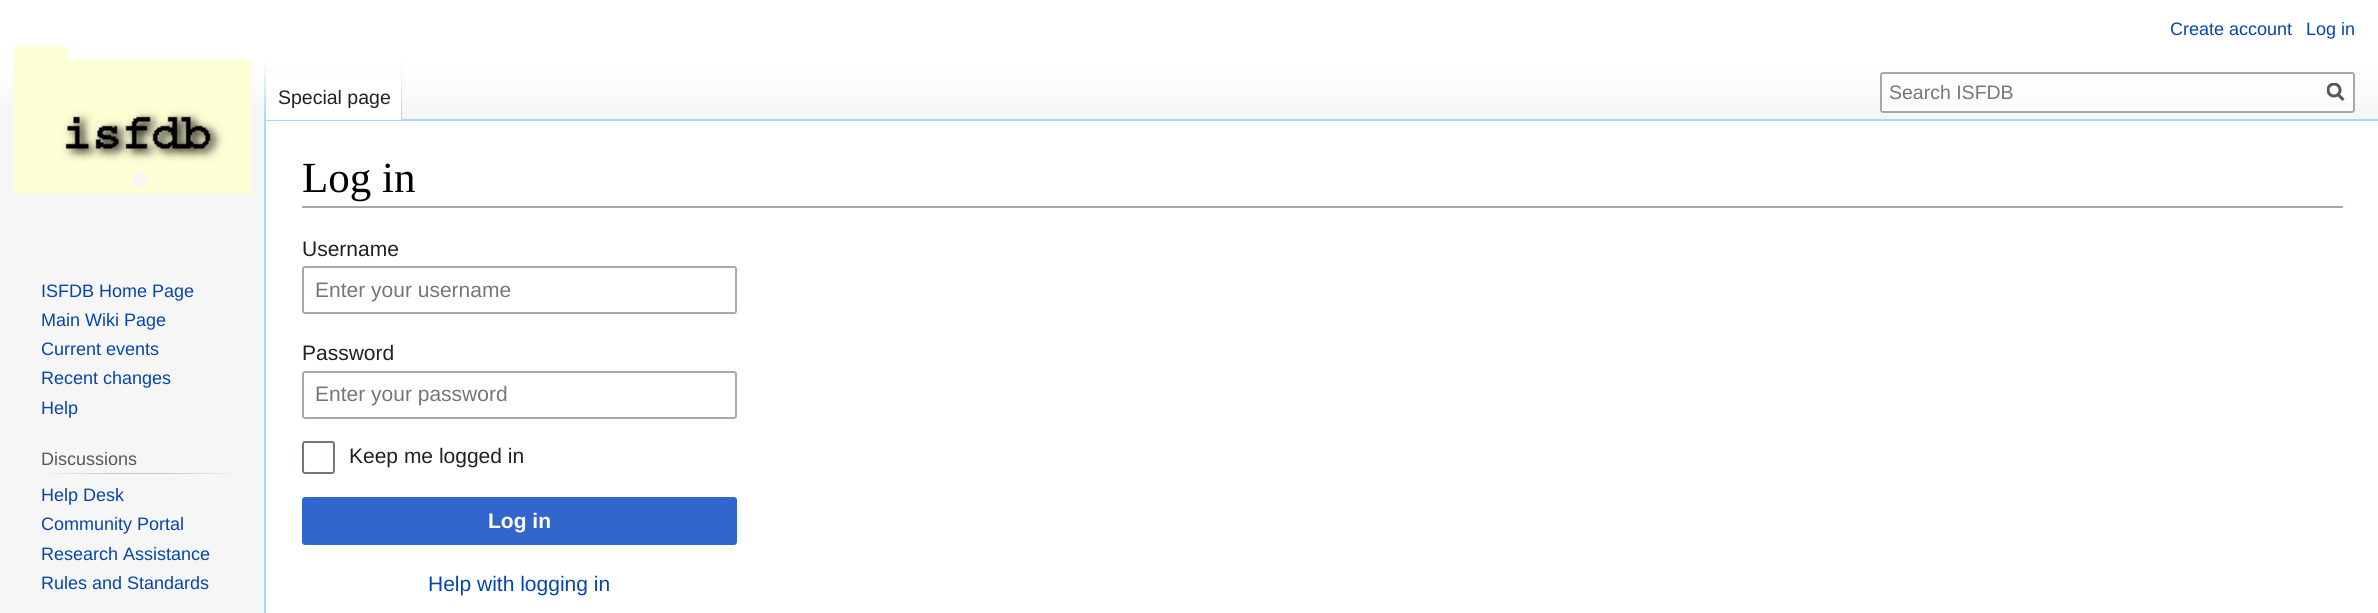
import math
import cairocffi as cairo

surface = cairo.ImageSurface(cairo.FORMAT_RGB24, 2378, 613)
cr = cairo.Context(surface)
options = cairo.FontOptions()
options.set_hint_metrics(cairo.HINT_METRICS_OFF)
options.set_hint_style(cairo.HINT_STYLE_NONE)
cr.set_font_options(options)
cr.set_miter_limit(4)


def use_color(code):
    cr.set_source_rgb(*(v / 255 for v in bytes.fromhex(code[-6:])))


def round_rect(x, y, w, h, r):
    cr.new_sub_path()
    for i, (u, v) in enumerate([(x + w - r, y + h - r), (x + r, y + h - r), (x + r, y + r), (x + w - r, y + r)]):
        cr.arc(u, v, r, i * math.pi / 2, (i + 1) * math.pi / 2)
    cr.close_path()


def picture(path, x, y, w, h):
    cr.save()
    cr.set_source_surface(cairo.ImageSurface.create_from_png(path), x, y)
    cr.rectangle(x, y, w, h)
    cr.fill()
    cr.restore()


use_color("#f6f6f6")
cr.paint()
gradient = cairo.LinearGradient(1190, 0, 1190, 120)
gradient.add_color_stop_rgba(0.5, 1, 1, 1, 1)
gradient.add_color_stop_rgba(1, 0.965, 0.965, 0.965, 1)
cr.set_source(gradient)
cr.rectangle(0, 0, 2378, 103)
cr.fill()
cr.select_font_face("Liberation Sans")
cr.set_font_size(18)
use_color("#0645ad")
cr.move_to(2170, 35)
cr.show_text("Create account")
cr.move_to(2306, 35)
cr.show_text("Log in")
use_color("#a7d7f9")
cr.rectangle(264, 119, 2114, 2)
cr.fill()
cr.rectangle(264, 119, 2, 494)
cr.fill()
gradient = cairo.LinearGradient(265, 60, 265, 120)
gradient.add_color_stop_rgba(0, 0.655, 0.843, 0.976, 0)
gradient.add_color_stop_rgba(1, 0.655, 0.843, 0.976, 1)
cr.set_source(gradient)
cr.rectangle(264, 60, 2, 60)
cr.fill()
use_color("#ffffff")
cr.rectangle(266, 77, 135, 43)
cr.fill()
gradient = cairo.LinearGradient(401, 60, 401, 120)
gradient.add_color_stop_rgba(0, 1, 1, 1, 1)
gradient.add_color_stop_rgba(1, 0.655, 0.843, 0.976, 1)
cr.set_source(gradient)
cr.rectangle(401, 60, 1, 60)
cr.fill()
cr.set_font_size(19.5)
use_color("#202122")
cr.move_to(278, 104)
cr.show_text("Special page")
cr.set_source_rgba(1, 1, 1, 0.5)
round_rect(1881, 73, 473, 39, 2)
cr.fill_preserve()
use_color("#a2a9b1")
cr.stroke()
use_color("#72777d")
cr.move_to(1889, 99)
cr.show_text("Search ISFDB")
cr.new_path()
cr.move_to(2343.5, 100)
cr.line_to(2337.5, 94)
use_color("#54595d")
cr.set_line_width(3)
cr.stroke()
cr.save()
cr.rectangle(2327, 83, 18, 19)
cr.clip()
cr.arc(2334, 90, 6, 0, 2 * math.pi)
cr.stroke()
cr.restore()
picture("img1.png", 13, 46, 239, 148)
cr.set_font_size(18)
use_color("#0645ad")
cr.move_to(41, 297)
cr.show_text("ISFDB Home Page")
cr.move_to(41, 326)
cr.show_text("Main Wiki Page")
cr.move_to(41, 355)
cr.show_text("Current events")
cr.move_to(41, 384)
cr.show_text("Recent changes")
cr.move_to(41, 414)
cr.show_text("Help")
gradient = cairo.LinearGradient(41, 473, 237, 473)
gradient.add_color_stop_rgba(0, 0.965, 0.965, 0.965, 1)
gradient.add_color_stop_rgba(0.33, 0.784, 0.8, 0.82, 1)
gradient.add_color_stop_rgba(0.66, 0.784, 0.8, 0.82, 1)
gradient.add_color_stop_rgba(1, 0.965, 0.965, 0.965, 1)
cr.set_source(gradient)
cr.rectangle(41, 473, 196, 1)
cr.fill()
use_color("#54595d")
cr.move_to(41, 465)
cr.show_text("Discussions")
use_color("#0645ad")
cr.move_to(41, 501)
cr.show_text("Help Desk")
cr.move_to(41, 530)
cr.show_text("Community Portal")
cr.move_to(41, 560)
cr.show_text("Research Assistance")
cr.move_to(41, 589)
cr.show_text("Rules and Standards")
use_color("#ffffff")
cr.rectangle(266, 121, 2112, 492)
cr.fill()
use_color("#a2a9b1")
cr.rectangle(302, 206, 2041, 2)
cr.fill()
cr.select_font_face("Liberation Serif")
cr.set_font_size(43)
use_color("#000000")
cr.move_to(302, 192)
cr.show_text("Log in")
cr.select_font_face("Liberation Sans")
cr.set_font_size(21)
use_color("#202122")
cr.move_to(302, 256)
cr.show_text("Username")
round_rect(303, 267, 433, 46, 2)
use_color("#a2a9b1")
cr.set_line_width(2)
cr.stroke()
use_color("#72777d")
cr.move_to(315, 297)
cr.show_text("Enter your username")
use_color("#202122")
cr.move_to(302, 360)
cr.show_text("Password")
round_rect(303, 372, 433, 46, 2)
use_color("#a2a9b1")
cr.stroke()
use_color("#72777d")
cr.move_to(315, 401)
cr.show_text("Enter your password")
round_rect(303, 442, 31, 31, 2)
cr.stroke()
use_color("#202122")
cr.move_to(349, 463)
cr.show_text("Keep me logged in")
use_color("#3366cc")
round_rect(303, 498, 433, 46, 2)
cr.fill_preserve()
cr.stroke()
cr.select_font_face("Liberation Sans", cairo.FONT_SLANT_NORMAL, cairo.FONT_WEIGHT_BOLD)
use_color("#ffffff")
cr.move_to(488, 528)
cr.show_text("Log in")
cr.select_font_face("Liberation Sans")
use_color("#0645ad")
cr.move_to(428, 591)
cr.show_text("Help with logging in")
surface.write_to_png("result.png")
